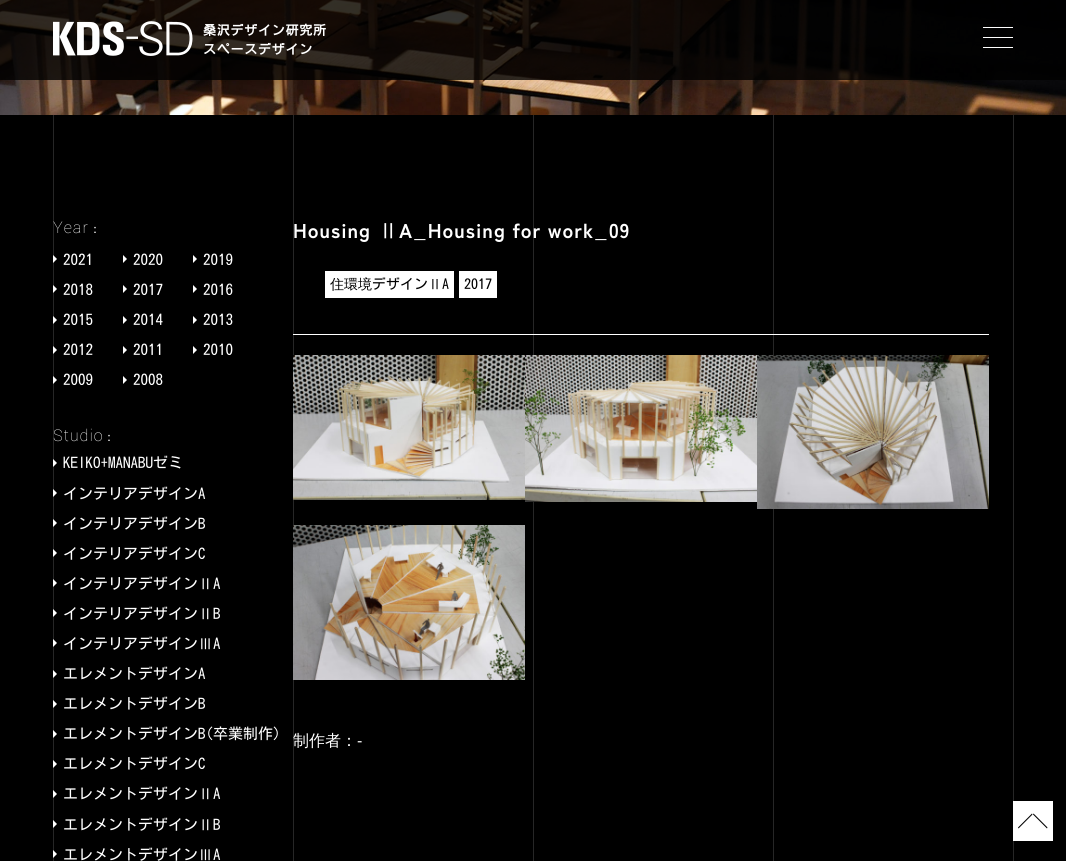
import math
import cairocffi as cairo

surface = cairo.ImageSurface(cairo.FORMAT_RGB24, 1066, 861)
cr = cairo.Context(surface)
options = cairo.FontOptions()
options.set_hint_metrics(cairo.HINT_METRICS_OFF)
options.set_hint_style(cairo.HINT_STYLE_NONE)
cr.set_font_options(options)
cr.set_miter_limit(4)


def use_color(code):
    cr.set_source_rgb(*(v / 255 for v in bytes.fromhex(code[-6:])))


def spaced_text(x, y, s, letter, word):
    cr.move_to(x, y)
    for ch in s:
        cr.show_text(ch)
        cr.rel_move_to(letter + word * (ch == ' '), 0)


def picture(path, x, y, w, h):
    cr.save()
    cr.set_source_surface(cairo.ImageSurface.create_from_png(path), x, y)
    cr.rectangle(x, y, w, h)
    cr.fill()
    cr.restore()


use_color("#000000")
cr.paint()
picture("img1.png", 0, 0, 1066, 115)
cr.set_source_rgba(0, 0, 0, 0.8)
cr.rectangle(0, 0, 1066, 80)
cr.fill()
picture("img2.png", 53, 21, 140, 35)
cr.select_font_face("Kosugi", cairo.FONT_SLANT_NORMAL, cairo.FONT_WEIGHT_BOLD)
cr.set_font_size(13)
use_color("#ffffff")
spaced_text(203, 35, "桑沢デザイン研究所", 0.75, 0)
spaced_text(203, 54, "スペースデザイン", 0.75, 0)
cr.rectangle(983, 27, 30, 1)
cr.fill()
cr.rectangle(983, 37, 30, 1)
cr.fill()
cr.rectangle(983, 47, 30, 1)
cr.fill()
use_color("#262626")
cr.rectangle(53, 115, 1, 746)
cr.fill()
cr.select_font_face("Yantramanav Thin")
cr.set_font_size(18)
use_color("#ffffff")
spaced_text(53, 233, "Year", 1, 0)
cr.select_font_face("WenQuanYi Zen Hei Medium")
cr.set_font_size(12)
spaced_text(89, 233, "：", 1, 0)
cr.new_path()
cr.move_to(53, 263)
cr.line_to(53, 255)
cr.line_to(57, 259)
cr.close_path()
cr.fill()
cr.select_font_face("Kosugi")
cr.set_font_size(15)
cr.move_to(63, 265)
cr.show_text("2021")
cr.new_path()
cr.move_to(123, 263)
cr.line_to(123, 255)
cr.line_to(127, 259)
cr.close_path()
cr.fill()
cr.move_to(133, 265)
cr.show_text("2020")
cr.new_path()
cr.move_to(193, 263)
cr.line_to(193, 255)
cr.line_to(197, 259)
cr.close_path()
cr.fill()
cr.move_to(203, 265)
cr.show_text("2019")
cr.new_path()
cr.move_to(53, 293)
cr.line_to(53, 285)
cr.line_to(57, 289)
cr.close_path()
cr.fill()
cr.move_to(63, 295)
cr.show_text("2018")
cr.new_path()
cr.move_to(123, 293)
cr.line_to(123, 285)
cr.line_to(127, 289)
cr.close_path()
cr.fill()
cr.move_to(133, 295)
cr.show_text("2017")
cr.new_path()
cr.move_to(193, 293)
cr.line_to(193, 285)
cr.line_to(197, 289)
cr.close_path()
cr.fill()
cr.move_to(203, 295)
cr.show_text("2016")
cr.new_path()
cr.move_to(53, 324)
cr.line_to(53, 316)
cr.line_to(57, 320)
cr.close_path()
cr.fill()
cr.move_to(63, 325)
cr.show_text("2015")
cr.new_path()
cr.move_to(123, 324)
cr.line_to(123, 316)
cr.line_to(127, 320)
cr.close_path()
cr.fill()
cr.move_to(133, 325)
cr.show_text("2014")
cr.new_path()
cr.move_to(193, 324)
cr.line_to(193, 316)
cr.line_to(197, 320)
cr.close_path()
cr.fill()
cr.move_to(203, 325)
cr.show_text("2013")
cr.new_path()
cr.move_to(53, 354)
cr.line_to(53, 346)
cr.line_to(57, 350)
cr.close_path()
cr.fill()
cr.move_to(63, 355)
cr.show_text("2012")
cr.new_path()
cr.move_to(123, 354)
cr.line_to(123, 346)
cr.line_to(127, 350)
cr.close_path()
cr.fill()
cr.move_to(133, 355)
cr.show_text("2011")
cr.new_path()
cr.move_to(193, 354)
cr.line_to(193, 346)
cr.line_to(197, 350)
cr.close_path()
cr.fill()
cr.move_to(203, 355)
cr.show_text("2010")
cr.new_path()
cr.move_to(53, 384)
cr.line_to(53, 376)
cr.line_to(57, 380)
cr.close_path()
cr.fill()
cr.move_to(63, 385)
cr.show_text("2009")
cr.new_path()
cr.move_to(123, 384)
cr.line_to(123, 376)
cr.line_to(127, 380)
cr.close_path()
cr.fill()
cr.move_to(133, 385)
cr.show_text("2008")
cr.select_font_face("Yantramanav Thin")
cr.set_font_size(18)
spaced_text(53, 441, "Studio", 1, 0)
cr.select_font_face("WenQuanYi Zen Hei Medium")
cr.set_font_size(12)
spaced_text(103, 441, "：", 1, 0)
cr.new_path()
cr.move_to(53, 467)
cr.line_to(53, 459)
cr.line_to(57, 463)
cr.close_path()
cr.fill()
cr.select_font_face("Kosugi")
cr.set_font_size(15)
cr.move_to(63, 468)
cr.show_text("KEIKO+MANABUゼミ")
cr.new_path()
cr.move_to(53, 497)
cr.line_to(53, 489)
cr.line_to(57, 493)
cr.close_path()
cr.fill()
cr.move_to(63, 499)
cr.show_text("インテリアデザインA")
cr.new_path()
cr.move_to(53, 527)
cr.line_to(53, 519)
cr.line_to(57, 523)
cr.close_path()
cr.fill()
cr.move_to(63, 529)
cr.show_text("インテリアデザインB")
cr.new_path()
cr.move_to(53, 557)
cr.line_to(53, 549)
cr.line_to(57, 553)
cr.close_path()
cr.fill()
cr.move_to(63, 559)
cr.show_text("インテリアデザインC")
cr.new_path()
cr.move_to(53, 587)
cr.line_to(53, 579)
cr.line_to(57, 583)
cr.close_path()
cr.fill()
cr.move_to(63, 589)
cr.show_text("インテリアデザイン")
cr.select_font_face("WenQuanYi Zen Hei Medium")
cr.move_to(198, 589)
cr.show_text("Ⅱ")
cr.select_font_face("Kosugi")
cr.move_to(213, 589)
cr.show_text("A")
cr.new_path()
cr.move_to(53, 617)
cr.line_to(53, 609)
cr.line_to(57, 613)
cr.close_path()
cr.fill()
cr.move_to(63, 619)
cr.show_text("インテリアデザイン")
cr.select_font_face("WenQuanYi Zen Hei Medium")
cr.move_to(198, 619)
cr.show_text("Ⅱ")
cr.select_font_face("Kosugi")
cr.move_to(213, 619)
cr.show_text("B")
cr.new_path()
cr.move_to(53, 647)
cr.line_to(53, 639)
cr.line_to(57, 643)
cr.close_path()
cr.fill()
cr.move_to(63, 649)
cr.show_text("インテリアデザイン")
cr.select_font_face("WenQuanYi Zen Hei Medium")
cr.move_to(198, 649)
cr.show_text("Ⅲ")
cr.select_font_face("Kosugi")
cr.move_to(213, 649)
cr.show_text("A")
cr.new_path()
cr.move_to(53, 678)
cr.line_to(53, 670)
cr.line_to(57, 674)
cr.close_path()
cr.fill()
cr.move_to(63, 679)
cr.show_text("エレメントデザインA")
cr.new_path()
cr.move_to(53, 708)
cr.line_to(53, 700)
cr.line_to(57, 704)
cr.close_path()
cr.fill()
cr.move_to(63, 709)
cr.show_text("エレメントデザインB")
cr.new_path()
cr.move_to(53, 738)
cr.line_to(53, 730)
cr.line_to(57, 734)
cr.close_path()
cr.fill()
cr.move_to(63, 739)
cr.show_text("エレメントデザインB(卒業制作)")
cr.new_path()
cr.move_to(53, 768)
cr.line_to(53, 760)
cr.line_to(57, 764)
cr.close_path()
cr.fill()
cr.move_to(63, 769)
cr.show_text("エレメントデザインC")
cr.new_path()
cr.move_to(53, 798)
cr.line_to(53, 790)
cr.line_to(57, 794)
cr.close_path()
cr.fill()
cr.move_to(63, 799)
cr.show_text("エレメントデザイン")
cr.select_font_face("WenQuanYi Zen Hei Medium")
cr.move_to(198, 799)
cr.show_text("Ⅱ")
cr.select_font_face("Kosugi")
cr.move_to(213, 799)
cr.show_text("A")
cr.new_path()
cr.move_to(53, 828)
cr.line_to(53, 820)
cr.line_to(57, 824)
cr.close_path()
cr.fill()
cr.move_to(63, 830)
cr.show_text("エレメントデザイン")
cr.select_font_face("WenQuanYi Zen Hei Medium")
cr.move_to(198, 830)
cr.show_text("Ⅱ")
cr.select_font_face("Kosugi")
cr.move_to(213, 830)
cr.show_text("B")
cr.new_path()
cr.move_to(53, 858)
cr.line_to(53, 850)
cr.line_to(57, 854)
cr.close_path()
cr.fill()
cr.move_to(63, 860)
cr.show_text("エレメントデザイン")
cr.select_font_face("WenQuanYi Zen Hei Medium")
cr.move_to(198, 860)
cr.show_text("Ⅲ")
cr.select_font_face("Kosugi")
cr.move_to(213, 860)
cr.show_text("A")
use_color("#262626")
cr.rectangle(293, 115, 1, 746)
cr.fill()
cr.rectangle(533, 115, 1, 746)
cr.fill()
cr.rectangle(773, 115, 1, 746)
cr.fill()
use_color("#ffffff")
cr.rectangle(293, 334, 696, 1)
cr.fill()
cr.select_font_face("Zen Kaku Gothic Antique", cairo.FONT_SLANT_NORMAL, cairo.FONT_WEIGHT_BOLD)
cr.set_font_size(20)
spaced_text(293, 238, "Housing", 1, 0)
cr.select_font_face("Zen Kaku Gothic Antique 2", cairo.FONT_SLANT_NORMAL, cairo.FONT_WEIGHT_BOLD)
spaced_text(378, 238, "Ⅱ", 1, 0)
cr.select_font_face("Zen Kaku Gothic Antique", cairo.FONT_SLANT_NORMAL, cairo.FONT_WEIGHT_BOLD)
spaced_text(399, 238, "A_Housing for work_09", 1, 0)
cr.rectangle(325, 271, 129, 27)
cr.fill()
cr.select_font_face("WenQuanYi Zen Hei Medium")
cr.set_font_size(14)
use_color("#000000")
cr.move_to(330, 289)
cr.show_text("住環境")
cr.select_font_face("Kosugi")
cr.move_to(372, 289)
cr.show_text("デザイン")
cr.select_font_face("WenQuanYi Zen Hei Medium")
cr.move_to(428, 289)
cr.show_text("Ⅱ")
cr.select_font_face("Kosugi")
cr.move_to(442, 289)
cr.show_text("A")
use_color("#ffffff")
cr.rectangle(459, 271, 38, 27)
cr.fill()
use_color("#000000")
cr.move_to(464, 289)
cr.show_text("2017")
picture("img3.png", 293, 355, 232, 145)
picture("img4.png", 525, 355, 232, 147)
picture("img5.png", 757, 355, 232, 154)
picture("img6.png", 293, 525, 232, 155)
cr.select_font_face("WenQuanYi Zen Hei Medium")
cr.set_font_size(16)
use_color("#ffffff")
cr.move_to(293, 746)
cr.show_text("制作者：")
cr.select_font_face("Liberation Sans")
cr.move_to(357, 746)
cr.show_text("-")
use_color("#262626")
cr.rectangle(1013, 115, 1, 746)
cr.fill()
use_color("#ffffff")
cr.rectangle(1013, 801, 40, 40)
cr.fill()
use_color("#000000")
cr.new_path()
cr.move_to(1032, 813.5)
cr.line_to(1032.5, 814.5)
cr.line_to(1018.5, 828.5)
cr.line_to(1018, 827.5)
cr.close_path()
cr.move_to(1033, 814.5)
cr.line_to(1033.5, 813.5)
cr.line_to(1047.5, 827.5)
cr.line_to(1047, 828.5)
cr.close_path()
cr.fill()
surface.write_to_png("result.png")
